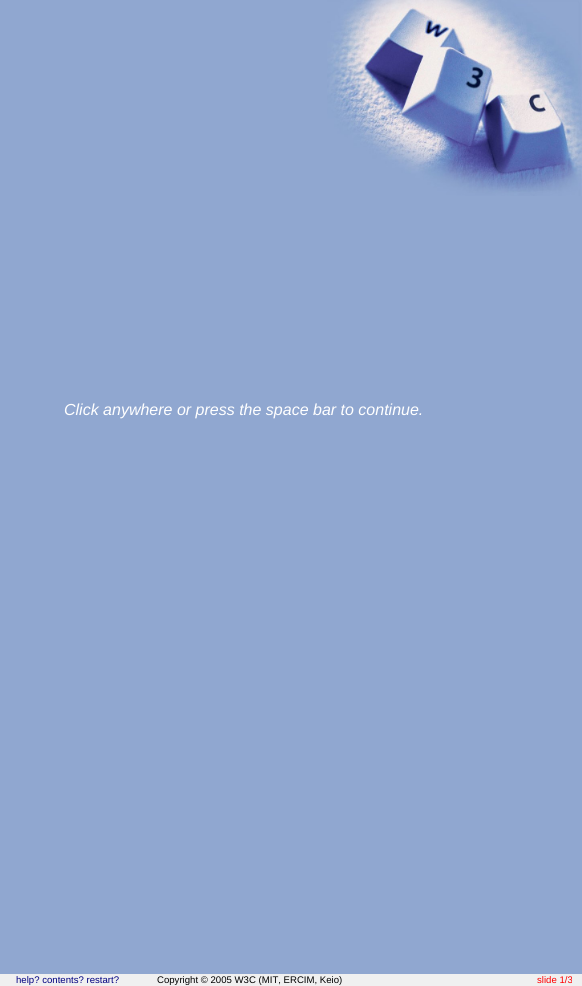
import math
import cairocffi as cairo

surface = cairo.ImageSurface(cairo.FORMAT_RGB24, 582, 986)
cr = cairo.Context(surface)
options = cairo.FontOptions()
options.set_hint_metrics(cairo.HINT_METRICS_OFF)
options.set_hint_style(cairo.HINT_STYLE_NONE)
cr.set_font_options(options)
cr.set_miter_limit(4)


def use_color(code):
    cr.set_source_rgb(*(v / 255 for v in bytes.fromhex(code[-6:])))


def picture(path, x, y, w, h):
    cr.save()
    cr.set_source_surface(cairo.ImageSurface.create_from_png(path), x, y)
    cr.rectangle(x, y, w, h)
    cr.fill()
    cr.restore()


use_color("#90a7d0")
cr.paint()
picture("img1.png", 327, 0, 255, 196)
cr.select_font_face("Liberation Sans", cairo.FONT_SLANT_ITALIC)
cr.set_font_size(16)
use_color("#ffffff")
cr.move_to(64, 415)
cr.show_text("Click anywhere or press the space bar to continue.")
use_color("#f0f0f0")
cr.rectangle(0, 974, 582, 12)
cr.fill()
cr.select_font_face("Liberation Sans")
cr.set_font_size(9.6)
use_color("#000080")
cr.move_to(16, 983)
cr.show_text("help? contents? restart?")
use_color("#000000")
cr.move_to(157, 983)
cr.show_text("Copyright © 2005 W3C (MIT, ERCIM, Keio)")
use_color("#ff0000")
cr.move_to(537, 983)
cr.show_text("slide 1/3")
surface.write_to_png("result.png")
